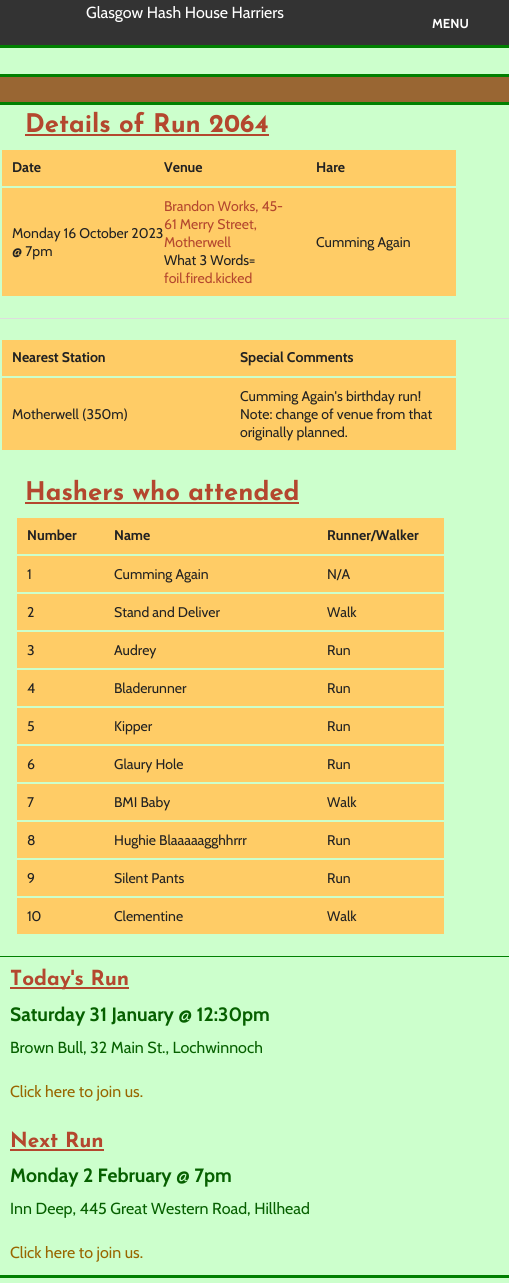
import math
import cairocffi as cairo

surface = cairo.ImageSurface(cairo.FORMAT_RGB24, 509, 1283)
cr = cairo.Context(surface)
options = cairo.FontOptions()
options.set_hint_metrics(cairo.HINT_METRICS_OFF)
options.set_hint_style(cairo.HINT_STYLE_NONE)
cr.set_font_options(options)
cr.set_miter_limit(4)


def use_color(code):
    cr.set_source_rgb(*(v / 255 for v in bytes.fromhex(code[-6:])))


use_color("#ccffcc")
cr.paint()
use_color("#008000")
cr.rectangle(0, 45, 509, 3)
cr.fill()
use_color("#333333")
cr.rectangle(0, 0, 509, 45)
cr.fill()
cr.select_font_face("Cabin")
cr.set_font_size(16)
use_color("#ffffff")
cr.move_to(86, 18)
cr.show_text("Glasgow Hash House Harriers")
cr.select_font_face("Cabin", cairo.FONT_SLANT_NORMAL, cairo.FONT_WEIGHT_BOLD)
cr.set_font_size(13)
cr.move_to(432, 28)
cr.show_text("MENU")
use_color("#008000")
cr.rectangle(0, 74, 509, 3)
cr.fill()
use_color("#996633")
cr.rectangle(0, 77, 509, 25)
cr.fill()
use_color("#008000")
cr.rectangle(0, 102, 509, 3)
cr.fill()
use_color("#008001")
cr.rectangle(0, 956, 509, 1)
cr.fill()
cr.select_font_face("Josefin Sans Thin")
cr.set_font_size(25.6)
use_color("#b4472e")
cr.move_to(25, 132)
cr.show_text("Details of Run 2064")
cr.rectangle(25, 134, 244, 2)
cr.fill()
use_color("#ffcc66")
cr.rectangle(2, 150, 454, 36)
cr.fill()
cr.select_font_face("Cabin", cairo.FONT_SLANT_NORMAL, cairo.FONT_WEIGHT_BOLD)
cr.set_font_size(14)
use_color("#222222")
cr.move_to(12, 172)
cr.show_text("Date")
cr.move_to(164, 172)
cr.show_text("Venue")
cr.move_to(316, 172)
cr.show_text("Hare")
use_color("#ffcc66")
cr.rectangle(2, 188, 454, 108)
cr.fill()
cr.select_font_face("Cabin")
use_color("#222222")
cr.move_to(12, 238)
cr.show_text("Monday 16 October 2023")
cr.move_to(12, 256)
cr.show_text("@ 7pm")
use_color("#b4472e")
cr.move_to(164, 211)
cr.show_text("Brandon Works, 45-")
cr.move_to(164, 229)
cr.show_text("61 Merry Street,")
cr.move_to(164, 247)
cr.show_text("Motherwell")
use_color("#222222")
cr.move_to(164, 265)
cr.show_text("What 3 Words=")
use_color("#b4472e")
cr.move_to(164, 283)
cr.show_text("foil.fired.kicked")
use_color("#222222")
cr.move_to(316, 247)
cr.show_text("Cumming Again")
use_color("#dddddd")
cr.rectangle(0, 318, 509, 1)
cr.fill()
use_color("#ffcc66")
cr.rectangle(2, 340, 454, 36)
cr.fill()
cr.select_font_face("Cabin", cairo.FONT_SLANT_NORMAL, cairo.FONT_WEIGHT_BOLD)
use_color("#222222")
cr.move_to(12, 362)
cr.show_text("Nearest Station")
cr.move_to(240, 362)
cr.show_text("Special Comments")
use_color("#ffcc66")
cr.rectangle(2, 378, 454, 72)
cr.fill()
cr.select_font_face("Cabin")
use_color("#222222")
cr.move_to(12, 419)
cr.show_text("Motherwell (350m)")
cr.move_to(240, 401)
cr.show_text("Cumming Again's birthday run!")
cr.move_to(240, 419)
cr.show_text("Note: change of venue from that")
cr.move_to(240, 437)
cr.show_text("originally planned.")
cr.select_font_face("Josefin Sans Thin")
cr.set_font_size(25.6)
use_color("#b4472e")
cr.move_to(25, 500)
cr.show_text("Hashers who attended")
cr.rectangle(25, 502, 274, 2)
cr.fill()
use_color("#ffcc66")
cr.rectangle(17, 518, 427, 36)
cr.fill()
cr.select_font_face("Cabin", cairo.FONT_SLANT_NORMAL, cairo.FONT_WEIGHT_BOLD)
cr.set_font_size(14)
use_color("#222222")
cr.move_to(27, 540)
cr.show_text("Number")
cr.move_to(114, 540)
cr.show_text("Name")
cr.move_to(327, 540)
cr.show_text("Runner/Walker")
use_color("#ffcc66")
cr.rectangle(17, 556, 427, 36)
cr.fill()
cr.select_font_face("Cabin")
use_color("#222222")
cr.move_to(27, 579)
cr.show_text("1")
cr.move_to(114, 579)
cr.show_text("Cumming Again")
cr.move_to(327, 579)
cr.show_text("N/A")
use_color("#ffcc66")
cr.rectangle(17, 594, 427, 36)
cr.fill()
use_color("#222222")
cr.move_to(27, 617)
cr.show_text("2")
cr.move_to(114, 617)
cr.show_text("Stand and Deliver")
cr.move_to(327, 617)
cr.show_text("Walk")
use_color("#ffcc66")
cr.rectangle(17, 632, 427, 36)
cr.fill()
use_color("#222222")
cr.move_to(27, 655)
cr.show_text("3")
cr.move_to(114, 655)
cr.show_text("Audrey")
cr.move_to(327, 655)
cr.show_text("Run")
use_color("#ffcc66")
cr.rectangle(17, 670, 427, 36)
cr.fill()
use_color("#222222")
cr.move_to(27, 693)
cr.show_text("4")
cr.move_to(114, 693)
cr.show_text("Bladerunner")
cr.move_to(327, 693)
cr.show_text("Run")
use_color("#ffcc66")
cr.rectangle(17, 708, 427, 36)
cr.fill()
use_color("#222222")
cr.move_to(27, 731)
cr.show_text("5")
cr.move_to(114, 731)
cr.show_text("Kipper")
cr.move_to(327, 731)
cr.show_text("Run")
use_color("#ffcc66")
cr.rectangle(17, 746, 427, 36)
cr.fill()
use_color("#222222")
cr.move_to(27, 769)
cr.show_text("6")
cr.move_to(114, 769)
cr.show_text("Glaury Hole")
cr.move_to(327, 769)
cr.show_text("Run")
use_color("#ffcc66")
cr.rectangle(17, 784, 427, 36)
cr.fill()
use_color("#222222")
cr.move_to(27, 807)
cr.show_text("7")
cr.move_to(114, 807)
cr.show_text("BMI Baby")
cr.move_to(327, 807)
cr.show_text("Walk")
use_color("#ffcc66")
cr.rectangle(17, 822, 427, 36)
cr.fill()
use_color("#222222")
cr.move_to(27, 845)
cr.show_text("8")
cr.move_to(114, 845)
cr.show_text("Hughie Blaaaaagghhrrr")
cr.move_to(327, 845)
cr.show_text("Run")
use_color("#ffcc66")
cr.rectangle(17, 860, 427, 36)
cr.fill()
use_color("#222222")
cr.move_to(27, 883)
cr.show_text("9")
cr.move_to(114, 883)
cr.show_text("Silent Pants")
cr.move_to(327, 883)
cr.show_text("Run")
use_color("#ffcc66")
cr.rectangle(17, 898, 427, 36)
cr.fill()
use_color("#222222")
cr.move_to(27, 921)
cr.show_text("10")
cr.move_to(114, 921)
cr.show_text("Clementine")
cr.move_to(327, 921)
cr.show_text("Walk")
use_color("#008000")
cr.rectangle(0, 1275, 509, 3)
cr.fill()
use_color("#b4472e")
cr.rectangle(10, 987, 119, 2)
cr.fill()
cr.select_font_face("Josefin Sans Thin")
cr.set_font_size(20.75)
cr.move_to(10, 985)
cr.show_text("Today's Run")
cr.select_font_face("Cabin", cairo.FONT_SLANT_NORMAL, cairo.FONT_WEIGHT_BOLD)
cr.set_font_size(19.25)
use_color("#066000")
cr.move_to(10, 1021)
cr.show_text("Saturday 31 January @ 12:30pm")
cr.select_font_face("Cabin")
cr.set_font_size(16)
cr.move_to(10, 1053)
cr.show_text("Brown Bull, 32 Main St., Lochwinnoch")
use_color("#996600")
cr.move_to(10, 1097)
cr.show_text("Click here to join us.")
cr.select_font_face("Josefin Sans Thin")
cr.set_font_size(20.75)
use_color("#b4472e")
cr.move_to(10, 1147)
cr.show_text("Next Run")
cr.rectangle(10, 1149, 94, 2)
cr.fill()
cr.select_font_face("Cabin", cairo.FONT_SLANT_NORMAL, cairo.FONT_WEIGHT_BOLD)
cr.set_font_size(19.25)
use_color("#066000")
cr.move_to(10, 1182)
cr.show_text("Monday 2 February @ 7pm")
cr.select_font_face("Cabin")
cr.set_font_size(16)
cr.move_to(10, 1214)
cr.show_text("Inn Deep, 445 Great Western Road, Hillhead")
use_color("#996600")
cr.move_to(10, 1258)
cr.show_text("Click here to join us.")
surface.write_to_png("result.png")
